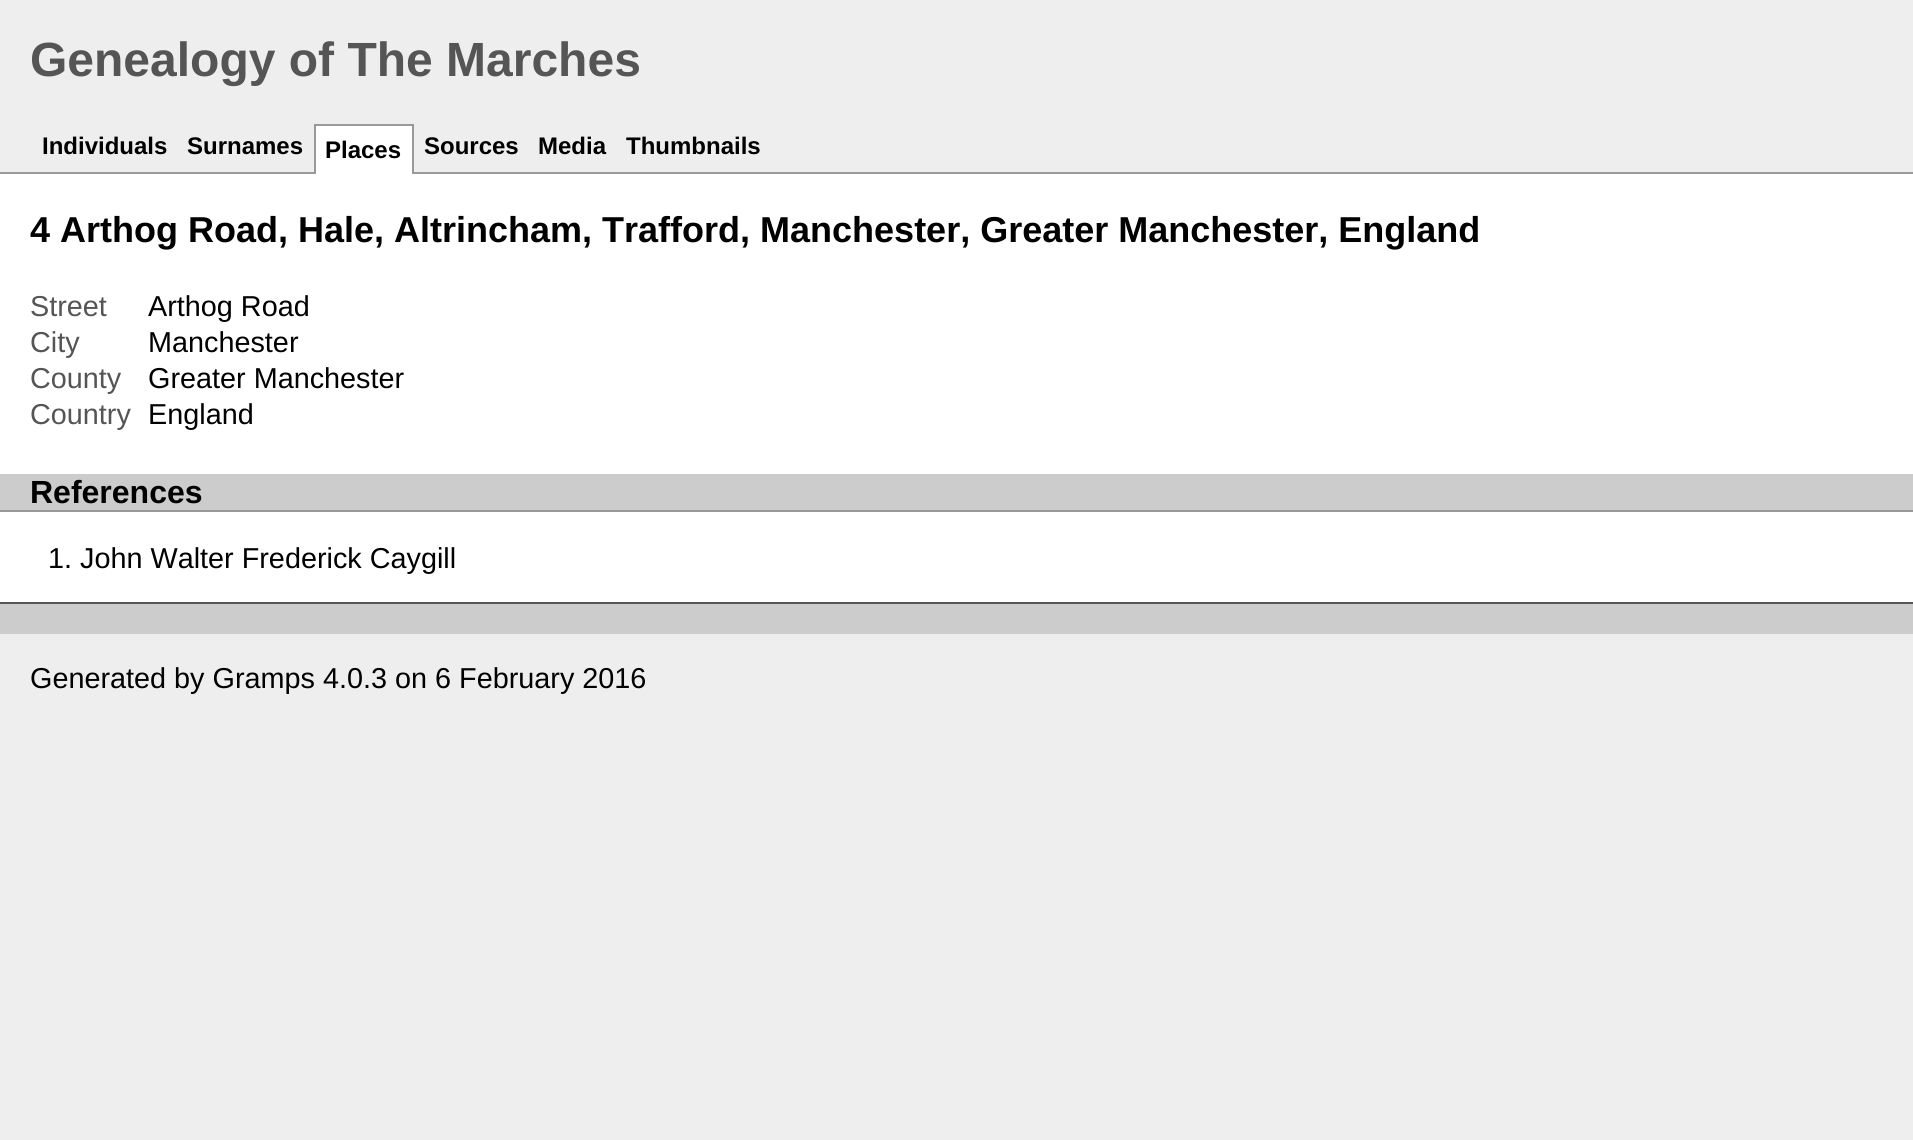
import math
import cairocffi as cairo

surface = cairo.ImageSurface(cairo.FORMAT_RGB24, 1913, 1140)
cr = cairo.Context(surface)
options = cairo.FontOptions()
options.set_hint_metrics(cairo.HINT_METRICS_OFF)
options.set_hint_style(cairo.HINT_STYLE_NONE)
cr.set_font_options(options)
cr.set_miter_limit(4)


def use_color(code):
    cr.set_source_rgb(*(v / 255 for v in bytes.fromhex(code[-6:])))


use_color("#eeeeee")
cr.paint()
cr.select_font_face("Liberation Sans", cairo.FONT_SLANT_NORMAL, cairo.FONT_WEIGHT_BOLD)
cr.set_font_size(48)
use_color("#555555")
cr.move_to(30, 76)
cr.show_text("Genealogy of The Marches")
cr.set_font_size(24)
use_color("#000000")
cr.move_to(42, 154)
cr.show_text("Individuals")
cr.move_to(187, 154)
cr.show_text("Surnames")
use_color("#999999")
cr.rectangle(0, 172, 1913, 2)
cr.fill()
use_color("#ffffff")
cr.rectangle(316, 126, 96, 48)
cr.fill()
use_color("#999999")
cr.rectangle(314, 124, 100, 2)
cr.fill()
cr.rectangle(412, 124, 2, 50)
cr.fill()
cr.rectangle(314, 124, 2, 50)
cr.fill()
use_color("#000000")
cr.move_to(325, 158)
cr.show_text("Places")
cr.move_to(424, 154)
cr.show_text("Sources")
cr.move_to(538, 154)
cr.show_text("Media")
cr.move_to(626, 154)
cr.show_text("Thumbnails")
use_color("#ffffff")
cr.rectangle(0, 174, 1913, 428)
cr.fill()
cr.set_font_size(36)
use_color("#000000")
cr.move_to(30, 242)
cr.show_text("4 Arthog Road, Hale, Altrincham, Trafford, Manchester, Greater Manchester, England")
cr.select_font_face("Liberation Sans")
cr.set_font_size(28.8)
use_color("#555555")
cr.move_to(30, 316)
cr.show_text("Street")
use_color("#000000")
cr.move_to(148, 316)
cr.show_text("Arthog Road")
use_color("#555555")
cr.move_to(30, 352)
cr.show_text("City")
use_color("#000000")
cr.move_to(148, 352)
cr.show_text("Manchester")
use_color("#555555")
cr.move_to(30, 388)
cr.show_text("County")
use_color("#000000")
cr.move_to(148, 388)
cr.show_text("Greater Manchester")
use_color("#555555")
cr.move_to(30, 424)
cr.show_text("Country")
use_color("#000000")
cr.move_to(148, 424)
cr.show_text("England")
use_color("#cccccc")
cr.rectangle(0, 474, 1913, 36)
cr.fill()
use_color("#999999")
cr.rectangle(0, 510, 1913, 2)
cr.fill()
cr.select_font_face("Liberation Sans", cairo.FONT_SLANT_NORMAL, cairo.FONT_WEIGHT_BOLD)
cr.set_font_size(32)
use_color("#000000")
cr.move_to(30, 503)
cr.show_text("References")
cr.select_font_face("Liberation Sans")
cr.set_font_size(28.8)
cr.move_to(48, 568)
cr.show_text("1. John Walter Frederick Caygill")
use_color("#cccccc")
cr.rectangle(0, 604, 1913, 30)
cr.fill()
use_color("#555555")
cr.rectangle(0, 602, 1913, 2)
cr.fill()
use_color("#000000")
cr.move_to(30, 688)
cr.show_text("Generated by Gramps 4.0.3 on 6 February 2016")
surface.write_to_png("result.png")
